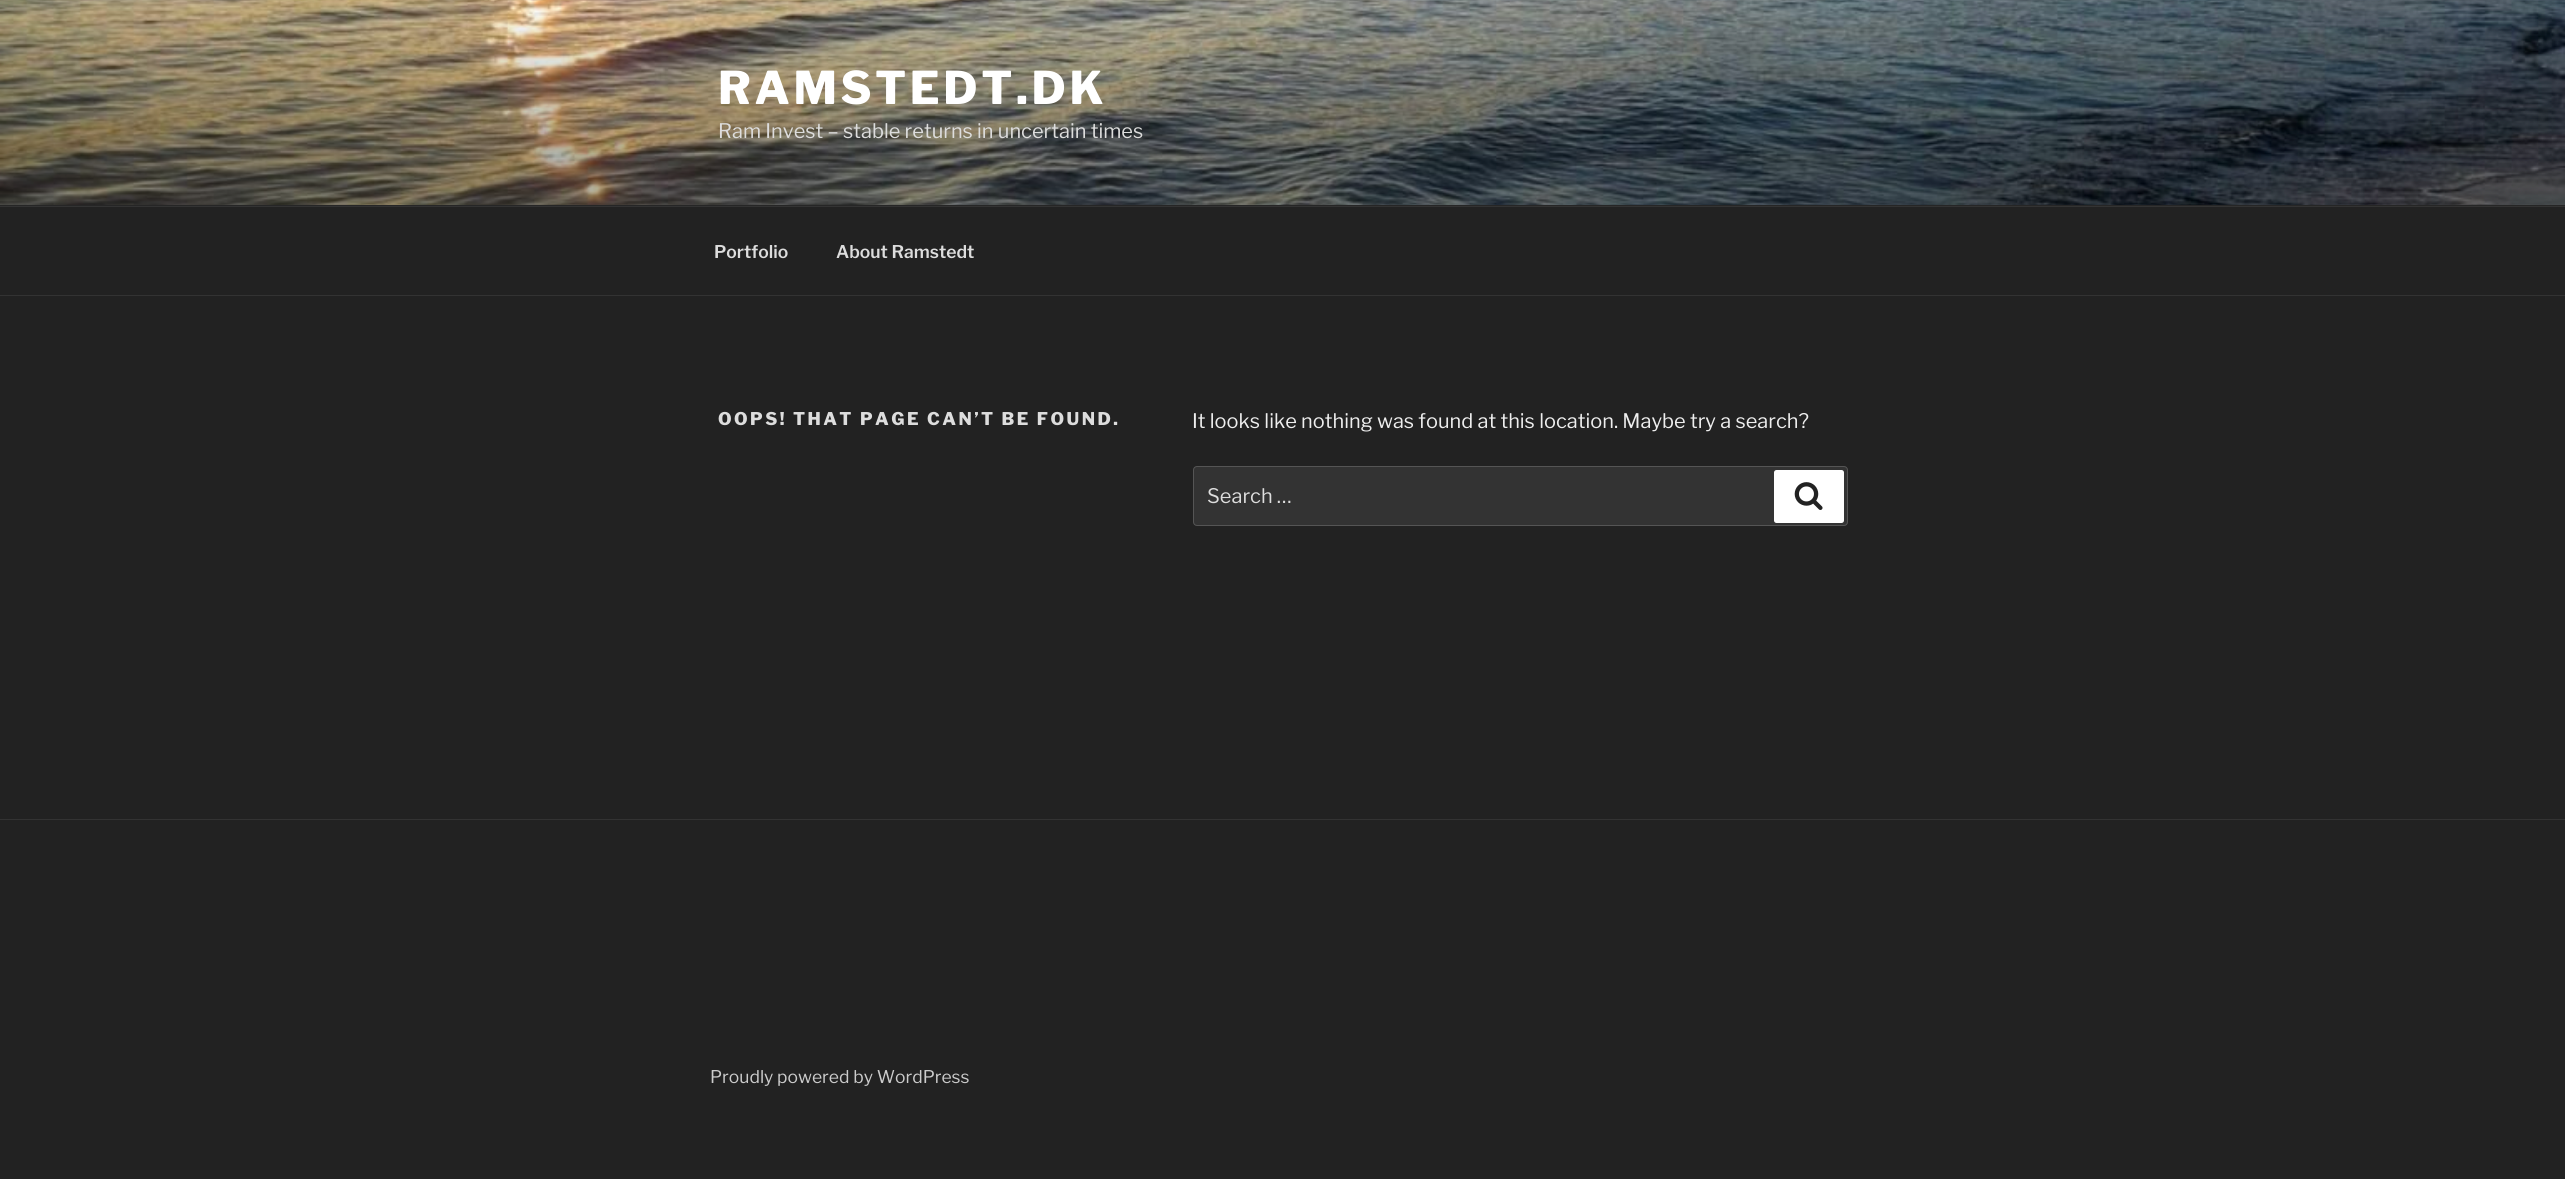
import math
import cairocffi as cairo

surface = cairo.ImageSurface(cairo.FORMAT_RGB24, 2565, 1179)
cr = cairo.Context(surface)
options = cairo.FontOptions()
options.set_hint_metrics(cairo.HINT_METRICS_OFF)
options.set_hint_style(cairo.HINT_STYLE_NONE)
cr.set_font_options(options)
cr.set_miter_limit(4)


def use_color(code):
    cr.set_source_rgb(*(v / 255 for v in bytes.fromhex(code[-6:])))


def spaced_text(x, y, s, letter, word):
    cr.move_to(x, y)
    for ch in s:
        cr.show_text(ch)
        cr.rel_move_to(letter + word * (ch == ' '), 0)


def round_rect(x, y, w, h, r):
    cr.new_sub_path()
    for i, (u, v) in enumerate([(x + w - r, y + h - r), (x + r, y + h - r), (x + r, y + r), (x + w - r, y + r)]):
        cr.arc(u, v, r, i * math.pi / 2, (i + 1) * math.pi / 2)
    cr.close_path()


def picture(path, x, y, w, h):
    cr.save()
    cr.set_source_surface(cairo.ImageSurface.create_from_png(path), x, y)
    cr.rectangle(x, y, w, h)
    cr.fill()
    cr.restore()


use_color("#222222")
cr.paint()
use_color("#262626")
cr.rectangle(0, 205, 2565, 1)
cr.fill()
picture("img1.png", 0, 0, 2565, 205)
cr.select_font_face("Libre Franklin Thin")
cr.set_font_size(45)
use_color("#ffffff")
spaced_text(718, 104, "RAMSTEDT.DK", 3.6, 0)
cr.select_font_face("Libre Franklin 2 Thin")
cr.set_font_size(20)
use_color("#dddddd")
cr.move_to(718, 138)
cr.show_text("Ram Invest – stable returns in uncertain times")
use_color("#333333")
cr.rectangle(0, 206, 2565, 1)
cr.fill()
cr.rectangle(0, 295, 2565, 1)
cr.fill()
cr.select_font_face("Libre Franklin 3 Thin")
cr.set_font_size(17.5)
use_color("#dddddd")
cr.move_to(714, 258)
cr.show_text("Portfolio")
cr.move_to(836, 258)
cr.show_text("About Ramstedt")
cr.select_font_face("Libre Franklin Thin")
spaced_text(718, 425, "OOPS! THAT PAGE CAN’T BE FOUND.", 2.45, 0)
cr.select_font_face("Libre Franklin 2 Thin")
cr.set_font_size(20)
use_color("#eeeeee")
cr.move_to(1192, 428)
cr.show_text("It looks like nothing was found at this location. Maybe try a search?")
use_color("#333333")
round_rect(1193.5, 466.5, 654, 59, 3.5)
cr.fill_preserve()
use_color("#555555")
cr.set_line_width(1)
cr.stroke()
use_color("#dddddd")
cr.move_to(1207, 503)
cr.show_text("Search …")
use_color("#ffffff")
round_rect(1774, 470, 70, 53, 2.5)
cr.fill()
picture("img2.png", 1794, 482, 29, 28)
use_color("#333333")
cr.rectangle(0, 819, 2565, 1)
cr.fill()
cr.set_font_size(17.5)
use_color("#cccccc")
cr.move_to(710, 1083)
cr.show_text("Proudly powered by WordPress")
surface.write_to_png("result.png")
